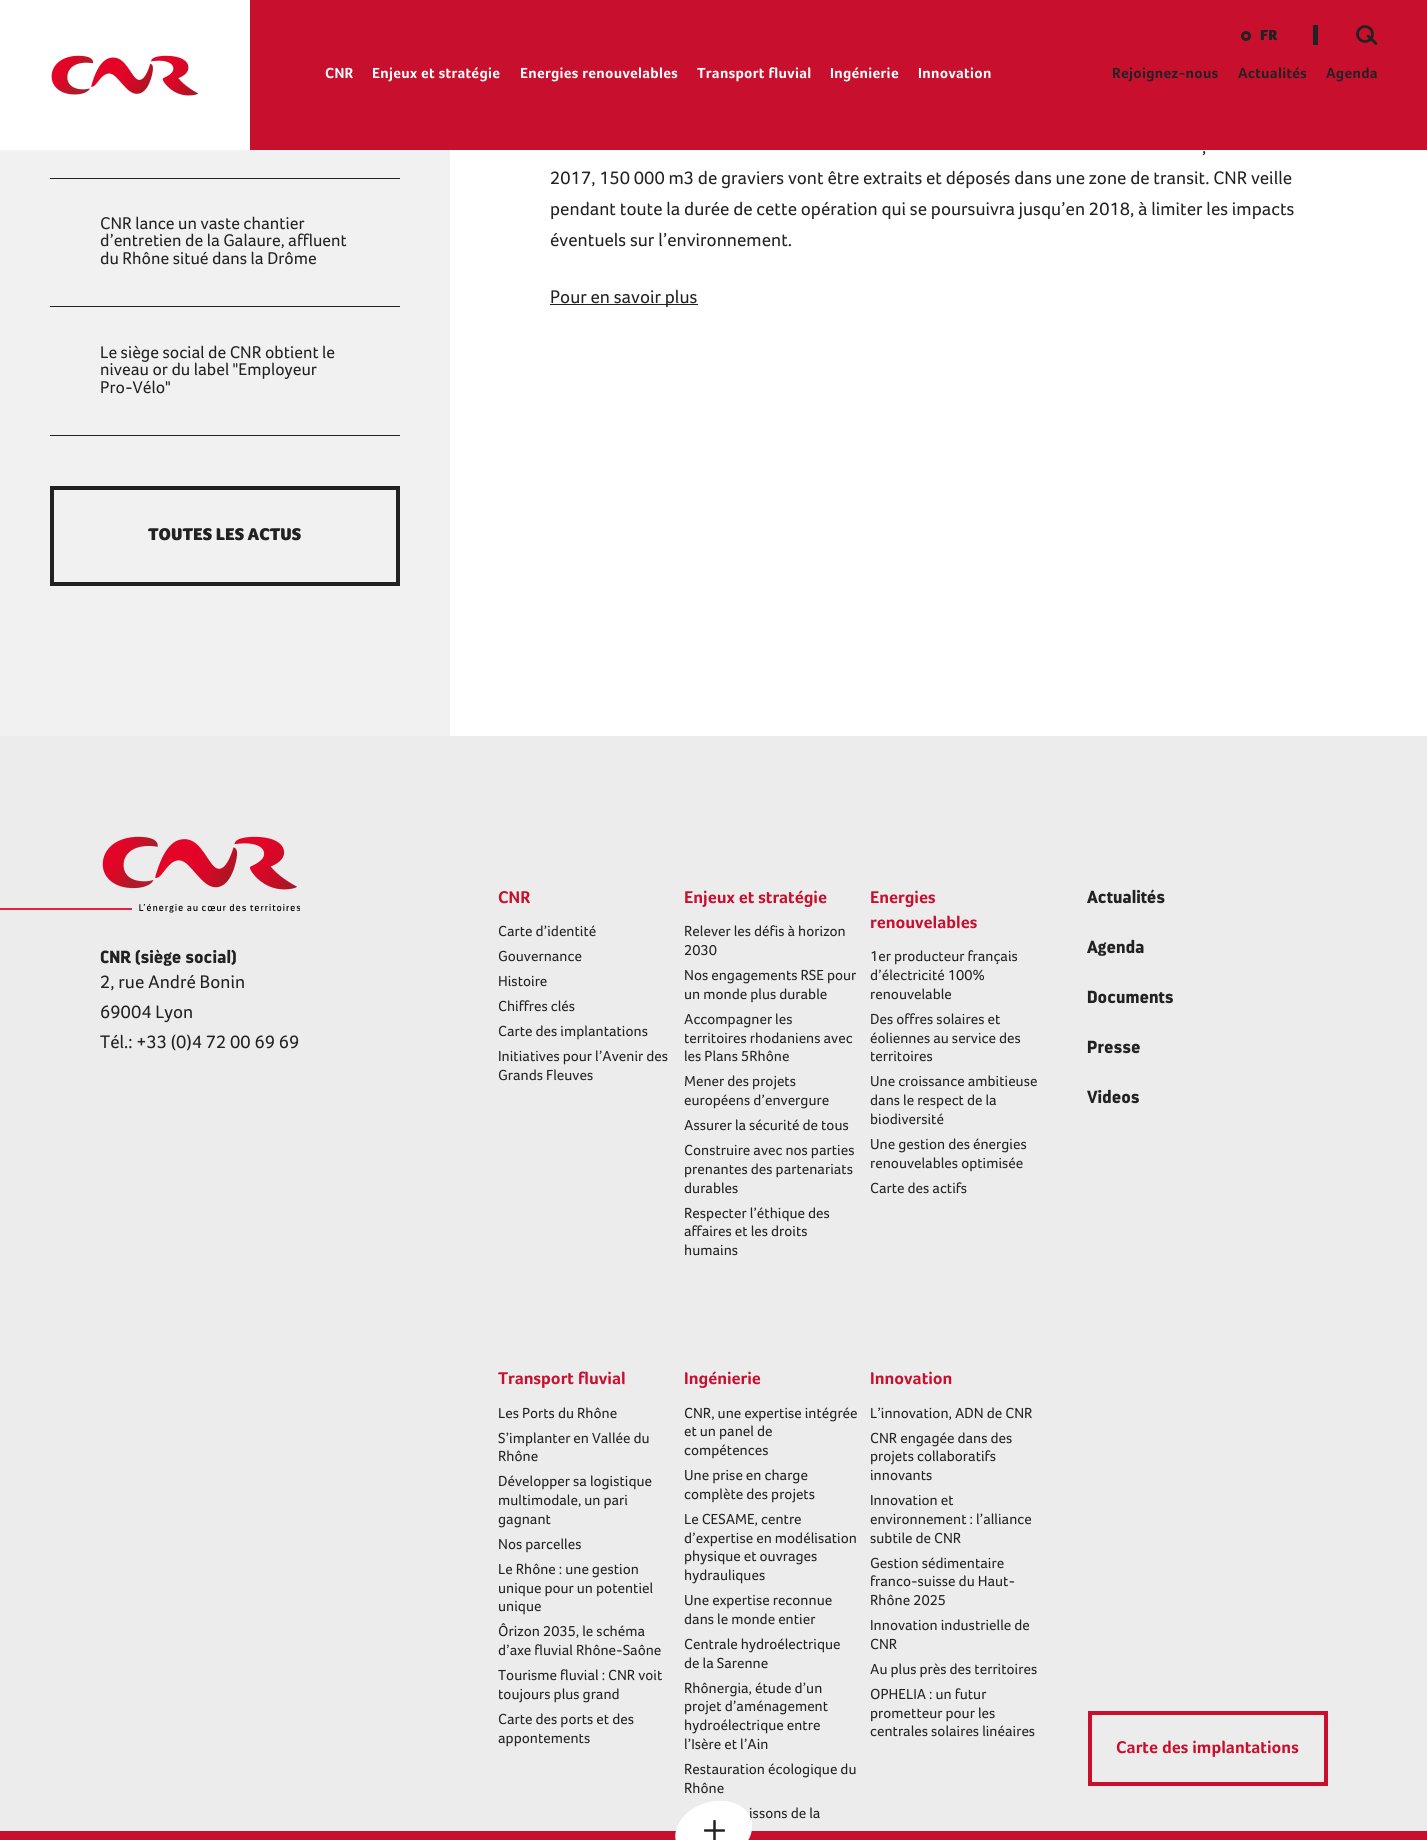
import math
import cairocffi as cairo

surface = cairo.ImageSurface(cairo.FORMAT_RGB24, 1427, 1840)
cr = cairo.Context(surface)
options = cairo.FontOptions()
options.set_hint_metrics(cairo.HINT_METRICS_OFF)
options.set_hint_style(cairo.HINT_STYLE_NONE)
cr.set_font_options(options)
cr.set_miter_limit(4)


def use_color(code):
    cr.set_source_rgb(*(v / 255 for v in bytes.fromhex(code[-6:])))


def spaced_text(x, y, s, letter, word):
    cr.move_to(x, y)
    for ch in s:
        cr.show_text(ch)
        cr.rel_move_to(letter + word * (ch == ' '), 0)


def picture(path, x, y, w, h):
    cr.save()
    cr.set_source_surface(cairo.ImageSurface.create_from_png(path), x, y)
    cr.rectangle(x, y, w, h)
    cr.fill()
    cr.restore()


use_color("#ffffff")
cr.paint()
use_color("#c8102e")
cr.rectangle(250, 0, 1177, 150)
cr.fill()
use_color("#222222")
cr.rectangle(1313, 25, 5, 20)
cr.fill()
cr.arc(1365, 34, 7.5, 0, 2 * math.pi)
cr.set_line_width(2.8)
cr.stroke()
cr.new_path()
cr.move_to(1368, 36)
cr.line_to(1376, 43.5)
cr.set_line_cap(cairo.LINE_CAP_ROUND)
cr.stroke()
picture("img1.png", 51, 55, 148, 41)
cr.arc(1246, 36, 3.5, 0, 2 * math.pi)
cr.set_line_width(3)
cr.set_line_cap(cairo.LINE_CAP_BUTT)
cr.stroke()
cr.select_font_face("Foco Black")
cr.set_font_size(15)
spaced_text(1260, 40, "FR", 0.3, 0)
cr.select_font_face("Foco", cairo.FONT_SLANT_NORMAL, cairo.FONT_WEIGHT_BOLD)
use_color("#ffffff")
spaced_text(325, 78, "CNR", 0.3, 0)
spaced_text(372, 78, "Enjeux et stratégie", 0.3, 0)
spaced_text(520, 78, "Energies renouvelables", 0.3, 0)
spaced_text(697, 78, "Transport fluvial", 0.3, 0)
spaced_text(830, 78, "Ingénierie", 0.3, 0)
spaced_text(918, 78, "Innovation", 0.3, 0)
use_color("#222222")
spaced_text(1112, 78, "Rejoignez-nous", 0.3, 0)
spaced_text(1238, 78, "Actualités", 0.3, 0)
spaced_text(1326, 78, "Agenda", 0.3, 0)
use_color("#f1f1f1")
cr.rectangle(0, 150, 450, 586)
cr.fill()
use_color("#222222")
cr.rectangle(50, 178, 350, 1)
cr.fill()
cr.rectangle(50, 306, 350, 1)
cr.fill()
cr.select_font_face("Foco")
cr.set_font_size(17.5)
cr.move_to(100, 229)
cr.show_text("CNR lance un vaste chantier")
cr.move_to(100, 246)
cr.show_text("d’entretien de la Galaure, affluent")
cr.move_to(100, 264)
cr.show_text("du Rhône situé dans la Drôme")
cr.rectangle(50, 435, 350, 1)
cr.fill()
cr.move_to(100, 358)
cr.show_text("Le siège social de CNR obtient le")
cr.move_to(100, 375)
cr.show_text("niveau or du label \"Employeur")
cr.move_to(100, 393)
cr.show_text("Pro-Vélo\"")
cr.rectangle(52, 488, 346, 96)
cr.set_line_width(4)
cr.stroke()
cr.select_font_face("Foco Black")
cr.move_to(148, 540)
cr.show_text("TOUTES LES ACTUS")
cr.select_font_face("Foco")
cr.set_font_size(18.75)
cr.move_to(1202, 153)
cr.show_text(",")
cr.move_to(550, 184)
cr.show_text("2017, 150 000 m3 de graviers vont être extraits et déposés dans une zone de transit. CNR veille")
cr.move_to(550, 215)
cr.show_text("pendant toute la durée de cette opération qui se poursuivra jusqu’en 2018, à limiter les impacts")
cr.move_to(550, 246)
cr.show_text("éventuels sur l’environnement.")
cr.rectangle(550, 304, 148, 1)
cr.fill()
cr.move_to(550, 303)
cr.show_text("Pour en savoir plus")
use_color("#ececec")
cr.rectangle(0, 736, 1427, 1095)
cr.fill()
picture("img2.png", 102, 836, 196, 54)
picture("img3.png", 0, 904, 300, 9)
cr.select_font_face("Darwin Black")
cr.set_font_size(17.5)
use_color("#222222")
cr.move_to(100, 963)
cr.show_text("CNR (siège social)")
cr.select_font_face("Foco")
cr.set_font_size(18.75)
cr.move_to(100, 988)
cr.show_text("2, rue André Bonin")
cr.move_to(100, 1018)
cr.show_text("69004 Lyon")
cr.move_to(100, 1048)
cr.show_text("Tél.: +33 (0)4 72 00 69 69")
cr.select_font_face("Foco", cairo.FONT_SLANT_NORMAL, cairo.FONT_WEIGHT_BOLD)
cr.set_font_size(17.5)
use_color("#c8102e")
cr.move_to(498, 903)
cr.show_text("CNR")
cr.select_font_face("Foco")
cr.set_font_size(15)
use_color("#222222")
cr.move_to(498, 936)
cr.show_text("Carte d’identité")
cr.move_to(498, 961)
cr.show_text("Gouvernance")
cr.move_to(498, 986)
cr.show_text("Histoire")
cr.move_to(498, 1011)
cr.show_text("Chiffres clés")
cr.move_to(498, 1036)
cr.show_text("Carte des implantations")
cr.move_to(498, 1061)
cr.show_text("Initiatives pour l’Avenir des")
cr.move_to(498, 1080)
cr.show_text("Grands Fleuves")
cr.select_font_face("Foco", cairo.FONT_SLANT_NORMAL, cairo.FONT_WEIGHT_BOLD)
cr.set_font_size(17.5)
use_color("#c8102e")
cr.move_to(684, 903)
cr.show_text("Enjeux et stratégie")
cr.select_font_face("Foco")
cr.set_font_size(15)
use_color("#222222")
cr.move_to(684, 936)
cr.show_text("Relever les défis à horizon")
cr.move_to(684, 955)
cr.show_text("2030")
cr.move_to(684, 980)
cr.show_text("Nos engagements RSE pour")
cr.move_to(684, 999)
cr.show_text("un monde plus durable")
cr.move_to(684, 1024)
cr.show_text("Accompagner les")
cr.move_to(684, 1043)
cr.show_text("territoires rhodaniens avec")
cr.move_to(684, 1061)
cr.show_text("les Plans 5Rhône")
cr.move_to(684, 1086)
cr.show_text("Mener des projets")
cr.move_to(684, 1105)
cr.show_text("européens d’envergure")
cr.move_to(684, 1130)
cr.show_text("Assurer la sécurité de tous")
cr.move_to(684, 1155)
cr.show_text("Construire avec nos parties")
cr.move_to(684, 1174)
cr.show_text("prenantes des partenariats")
cr.move_to(684, 1193)
cr.show_text("durables")
cr.move_to(684, 1218)
cr.show_text("Respecter l’éthique des")
cr.move_to(684, 1236)
cr.show_text("affaires et les droits")
cr.move_to(684, 1255)
cr.show_text("humains")
cr.select_font_face("Foco", cairo.FONT_SLANT_NORMAL, cairo.FONT_WEIGHT_BOLD)
cr.set_font_size(17.5)
use_color("#c8102e")
cr.move_to(870, 903)
cr.show_text("Energies")
cr.move_to(870, 928)
cr.show_text("renouvelables")
cr.select_font_face("Foco")
cr.set_font_size(15)
use_color("#222222")
cr.move_to(870, 961)
cr.show_text("1er producteur français")
cr.move_to(870, 980)
cr.show_text("d’électricité 100%")
cr.move_to(870, 999)
cr.show_text("renouvelable")
cr.move_to(870, 1024)
cr.show_text("Des offres solaires et")
cr.move_to(870, 1043)
cr.show_text("éoliennes au service des")
cr.move_to(870, 1061)
cr.show_text("territoires")
cr.move_to(870, 1086)
cr.show_text("Une croissance ambitieuse")
cr.move_to(870, 1105)
cr.show_text("dans le respect de la")
cr.move_to(870, 1124)
cr.show_text("biodiversité")
cr.move_to(870, 1149)
cr.show_text("Une gestion des énergies")
cr.move_to(870, 1168)
cr.show_text("renouvelables optimisée")
cr.move_to(870, 1193)
cr.show_text("Carte des actifs")
cr.select_font_face("Foco", cairo.FONT_SLANT_NORMAL, cairo.FONT_WEIGHT_BOLD)
cr.set_font_size(17.5)
use_color("#c8102e")
cr.move_to(498, 1384)
cr.show_text("Transport fluvial")
cr.select_font_face("Foco")
cr.set_font_size(15)
use_color("#222222")
cr.move_to(498, 1418)
cr.show_text("Les Ports du Rhône")
cr.move_to(498, 1443)
cr.show_text("S’implanter en Vallée du")
cr.move_to(498, 1461)
cr.show_text("Rhône")
cr.move_to(498, 1486)
cr.show_text("Développer sa logistique")
cr.move_to(498, 1505)
cr.show_text("multimodale, un pari")
cr.move_to(498, 1524)
cr.show_text("gagnant")
cr.move_to(498, 1549)
cr.show_text("Nos parcelles")
cr.move_to(498, 1574)
cr.show_text("Le Rhône : une gestion")
cr.move_to(498, 1593)
cr.show_text("unique pour un potentiel")
cr.move_to(498, 1611)
cr.show_text("unique")
cr.move_to(498, 1636)
cr.show_text("Ôrizon 2035, le schéma")
cr.move_to(498, 1655)
cr.show_text("d’axe fluvial Rhône-Saône")
cr.move_to(498, 1680)
cr.show_text("Tourisme fluvial : CNR voit")
cr.move_to(498, 1699)
cr.show_text("toujours plus grand")
cr.move_to(498, 1724)
cr.show_text("Carte des ports et des")
cr.move_to(498, 1743)
cr.show_text("appontements")
cr.select_font_face("Foco", cairo.FONT_SLANT_NORMAL, cairo.FONT_WEIGHT_BOLD)
cr.set_font_size(17.5)
use_color("#c8102e")
cr.move_to(684, 1384)
cr.show_text("Ingénierie")
cr.select_font_face("Foco")
cr.set_font_size(15)
use_color("#222222")
cr.move_to(684, 1418)
cr.show_text("CNR, une expertise intégrée")
cr.move_to(684, 1436)
cr.show_text("et un panel de")
cr.move_to(684, 1455)
cr.show_text("compétences")
cr.move_to(684, 1480)
cr.show_text("Une prise en charge")
cr.move_to(684, 1499)
cr.show_text("complète des projets")
cr.move_to(684, 1524)
cr.show_text("Le CESAME, centre")
cr.move_to(684, 1543)
cr.show_text("d’expertise en modélisation")
cr.move_to(684, 1561)
cr.show_text("physique et ouvrages")
cr.move_to(684, 1580)
cr.show_text("hydrauliques")
cr.move_to(684, 1605)
cr.show_text("Une expertise reconnue")
cr.move_to(684, 1624)
cr.show_text("dans le monde entier")
cr.move_to(684, 1649)
cr.show_text("Centrale hydroélectrique")
cr.move_to(684, 1668)
cr.show_text("de la Sarenne")
cr.move_to(684, 1693)
cr.show_text("Rhônergia, étude d’un")
cr.move_to(684, 1711)
cr.show_text("projet d’aménagement")
cr.move_to(684, 1730)
cr.show_text("hydroélectrique entre")
cr.move_to(684, 1749)
cr.show_text("l’Isère et l’Ain")
cr.move_to(684, 1774)
cr.show_text("Restauration écologique du")
cr.move_to(684, 1793)
cr.show_text("Rhône")
cr.move_to(749, 1818)
cr.show_text("issons de la")
cr.select_font_face("Foco", cairo.FONT_SLANT_NORMAL, cairo.FONT_WEIGHT_BOLD)
cr.set_font_size(17.5)
use_color("#c8102e")
cr.move_to(870, 1384)
cr.show_text("Innovation")
cr.select_font_face("Foco")
cr.set_font_size(15)
use_color("#222222")
cr.move_to(870, 1418)
cr.show_text("L’innovation, ADN de CNR")
cr.move_to(870, 1443)
cr.show_text("CNR engagée dans des")
cr.move_to(870, 1461)
cr.show_text("projets collaboratifs")
cr.move_to(870, 1480)
cr.show_text("innovants")
cr.move_to(870, 1505)
cr.show_text("Innovation et")
cr.move_to(870, 1524)
cr.show_text("environnement : l’alliance")
cr.move_to(870, 1543)
cr.show_text("subtile de CNR")
cr.move_to(870, 1568)
cr.show_text("Gestion sédimentaire")
cr.move_to(870, 1586)
cr.show_text("franco-suisse du Haut-")
cr.move_to(870, 1605)
cr.show_text("Rhône 2025")
cr.move_to(870, 1630)
cr.show_text("Innovation industrielle de")
cr.move_to(870, 1649)
cr.show_text("CNR")
cr.move_to(870, 1674)
cr.show_text("Au plus près des territoires")
cr.move_to(870, 1699)
cr.show_text("OPHELIA : un futur")
cr.move_to(870, 1718)
cr.show_text("prometteur pour les")
cr.move_to(870, 1736)
cr.show_text("centrales solaires linéaires")
cr.select_font_face("Darwin Black")
cr.set_font_size(17.5)
cr.move_to(1087, 903)
cr.show_text("Actualités")
cr.move_to(1087, 953)
cr.show_text("Agenda")
cr.move_to(1087, 1003)
cr.show_text("Documents")
cr.move_to(1087, 1053)
cr.show_text("Presse")
cr.move_to(1087, 1103)
cr.show_text("Videos")
cr.rectangle(1090, 1713, 236, 71)
use_color("#c8102e")
cr.stroke()
cr.select_font_face("Foco", cairo.FONT_SLANT_NORMAL, cairo.FONT_WEIGHT_BOLD)
cr.move_to(1116, 1753)
cr.show_text("Carte des implantations")
cr.rectangle(0, 1831, 1427, 9)
cr.fill()
use_color("#ffffff")
cr.new_path()
cr.move_to(751, 1831)
cr.curve_to(755, 1815, 741, 1801, 720, 1801)
cr.curve_to(699, 1801, 680, 1815, 676, 1831)
cr.curve_to(673, 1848, 687, 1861, 707, 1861)
cr.curve_to(728, 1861, 748, 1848, 751, 1831)
cr.close_path()
cr.fill()
cr.new_path()
cr.move_to(751, 1831.5)
cr.curve_to(754.5, 1814.5, 741, 1801.5, 720, 1801.5)
cr.curve_to(699.5, 1801.5, 680, 1814.5, 676.5, 1831.5)
cr.curve_to(673, 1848, 686.5, 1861, 707.5, 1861)
cr.curve_to(728, 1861, 747.5, 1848, 751, 1831.5)
cr.close_path()
cr.set_line_width(1.2)
cr.stroke()
cr.save()
cr.rectangle(704, 1820, 21, 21)
cr.clip()
cr.new_path()
cr.move_to(714.5, 1821)
cr.line_to(714.5, 1840)
cr.move_to(705, 1830.5)
cr.line_to(724, 1830.5)
use_color("#222222")
cr.set_line_width(2.5)
cr.set_line_cap(cairo.LINE_CAP_ROUND)
cr.set_line_join(cairo.LINE_JOIN_ROUND)
cr.stroke()
cr.restore()
surface.write_to_png("result.png")
